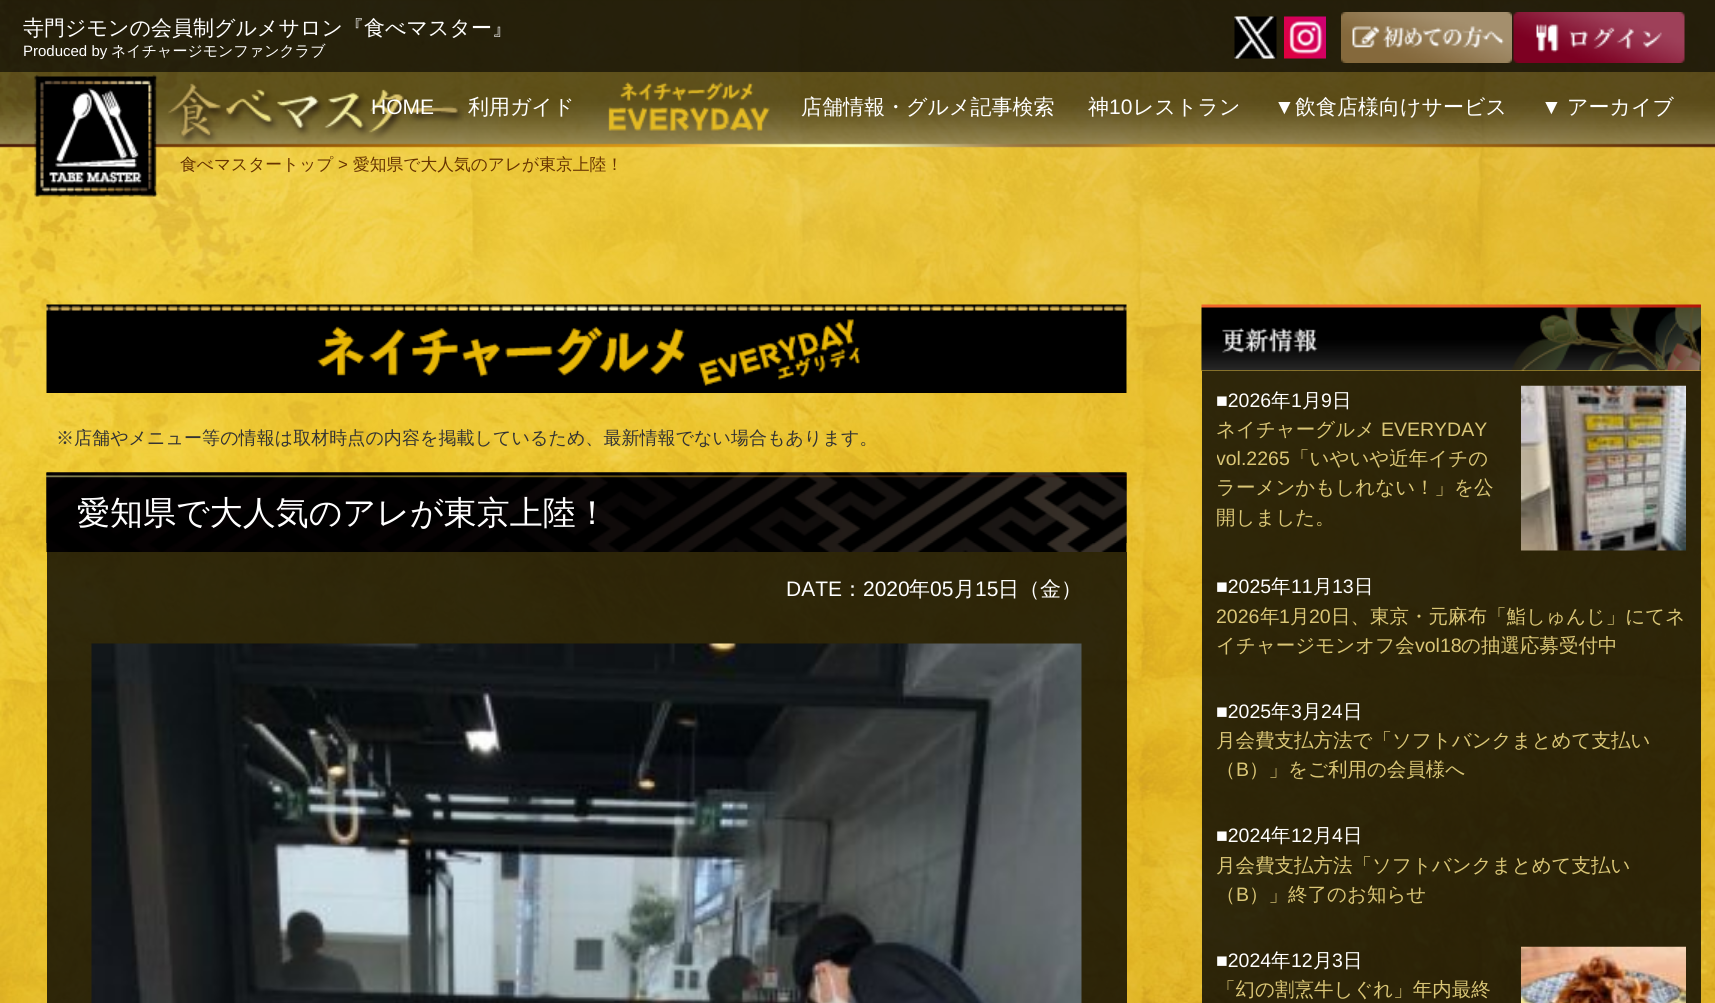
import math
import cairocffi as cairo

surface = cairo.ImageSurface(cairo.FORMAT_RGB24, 1715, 1003)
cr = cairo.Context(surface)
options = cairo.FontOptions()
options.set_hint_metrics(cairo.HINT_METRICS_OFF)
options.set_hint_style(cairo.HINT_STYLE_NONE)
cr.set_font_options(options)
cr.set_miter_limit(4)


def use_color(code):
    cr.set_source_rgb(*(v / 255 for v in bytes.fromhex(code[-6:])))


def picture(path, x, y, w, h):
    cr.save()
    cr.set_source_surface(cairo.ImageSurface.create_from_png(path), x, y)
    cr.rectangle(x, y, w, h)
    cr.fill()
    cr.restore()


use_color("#ffffff")
cr.paint()
picture("img1.png", 0, 0, 1715, 1003)
picture("img2.png", 0, 0, 1715, 148)
cr.set_source_rgba(0, 0, 0, 0.6)
cr.rectangle(0, 0, 1715, 72)
cr.fill()
cr.select_font_face("WenQuanYi Zen Hei Medium")
cr.set_font_size(21)
use_color("#ffffff")
cr.move_to(23, 35)
cr.show_text("寺門ジモンの会員制グルメサロン『食べマスター』")
cr.select_font_face("Liberation Sans")
cr.set_font_size(15)
cr.move_to(23, 56)
cr.show_text("Produced by")
cr.select_font_face("WenQuanYi Zen Hei Medium")
cr.move_to(111, 56)
cr.show_text("ネイチャージモンファンクラブ")
picture("img3.png", 1234, 16, 43, 43)
picture("img4.png", 1284, 16, 42, 43)
picture("img5.png", 1341, 12, 171, 51)
picture("img6.png", 1513, 12, 172, 51)
picture("img7.png", 34, 74, 430, 123)
cr.select_font_face("Liberation Sans")
cr.set_font_size(21)
cr.move_to(371, 114)
cr.show_text("HOME")
cr.select_font_face("WenQuanYi Zen Hei Medium")
cr.move_to(468, 114)
cr.show_text("利用ガイド")
picture("img8.png", 608, 82, 162, 49)
cr.move_to(801, 114)
cr.show_text("店舗情報・グルメ記事検索")
cr.move_to(1088, 114)
cr.show_text("神")
cr.select_font_face("Liberation Sans")
cr.move_to(1109, 114)
cr.show_text("10")
cr.select_font_face("WenQuanYi Zen Hei Medium")
cr.move_to(1133, 114)
cr.show_text("レストラン")
cr.select_font_face("Liberation Sans")
cr.move_to(1274, 114)
cr.show_text("▼")
cr.select_font_face("WenQuanYi Zen Hei Medium")
cr.move_to(1295, 114)
cr.show_text("飲食店様向けサービス")
cr.select_font_face("Liberation Sans")
cr.move_to(1541, 114)
cr.show_text("▼")
cr.select_font_face("WenQuanYi Zen Hei Medium")
cr.move_to(1567, 114)
cr.show_text("アーカイブ")
cr.set_font_size(16.75)
use_color("#663300")
cr.move_to(180, 170)
cr.show_text("食べマスタートップ")
cr.select_font_face("Liberation Sans")
cr.move_to(338, 170)
cr.show_text(">")
cr.select_font_face("WenQuanYi Zen Hei Medium")
cr.move_to(353, 170)
cr.show_text("愛知県で大人気のアレが東京上陸！")
picture("img9.png", 46, 304, 1081, 89)
cr.set_font_size(18.05)
use_color("#333333")
cr.move_to(56, 444)
cr.show_text("※店舗やメニュー等の情報は取材時点の内容を掲載しているため、最新情報でない場合もあります。")
picture("img10.png", 46, 472, 1081, 80)
picture("img11.png", 46, 472, 1081, 71)
cr.set_font_size(33)
use_color("#ffffff")
cr.move_to(77, 524)
cr.show_text("愛知県で大人気のアレが東京上陸！")
cr.set_source_rgba(0, 0, 0, 0.8)
cr.rectangle(47, 552, 1080, 451)
cr.fill()
cr.select_font_face("Liberation Sans")
cr.set_font_size(21)
use_color("#ffffff")
cr.move_to(786, 596)
cr.show_text("DATE")
cr.select_font_face("WenQuanYi Zen Hei Medium")
cr.move_to(842, 596)
cr.show_text("：")
cr.select_font_face("Liberation Sans")
cr.move_to(863, 596)
cr.show_text("2020")
cr.select_font_face("WenQuanYi Zen Hei Medium")
cr.move_to(909, 596)
cr.show_text("年")
cr.select_font_face("Liberation Sans")
cr.move_to(930, 596)
cr.show_text("05")
cr.select_font_face("WenQuanYi Zen Hei Medium")
cr.move_to(954, 596)
cr.show_text("月")
cr.select_font_face("Liberation Sans")
cr.move_to(975, 596)
cr.show_text("15")
cr.select_font_face("WenQuanYi Zen Hei Medium")
cr.move_to(998, 596)
cr.show_text("日（金）")
picture("img12.png", 91, 643, 991, 360)
picture("img13.png", 1201, 304, 500, 67)
cr.set_source_rgba(0, 0, 0, 0.8)
cr.rectangle(1202, 371, 499, 632)
cr.fill()
cr.select_font_face("Liberation Sans")
cr.set_font_size(19.5)
use_color("#ffffff")
cr.move_to(1216, 407)
cr.show_text("■2026")
cr.select_font_face("WenQuanYi Zen Hei Medium")
cr.move_to(1271, 407)
cr.show_text("年")
cr.select_font_face("Liberation Sans")
cr.move_to(1291, 407)
cr.show_text("1")
cr.select_font_face("WenQuanYi Zen Hei Medium")
cr.move_to(1302, 407)
cr.show_text("月")
cr.select_font_face("Liberation Sans")
cr.move_to(1321, 407)
cr.show_text("9")
cr.select_font_face("WenQuanYi Zen Hei Medium")
cr.move_to(1332, 407)
cr.show_text("日")
picture("img14.png", 1521, 385, 165, 166)
use_color("#dac676")
cr.move_to(1216, 436)
cr.show_text("ネイチャーグルメ")
cr.select_font_face("Liberation Sans")
cr.move_to(1381, 436)
cr.show_text("EVERYDAY")
cr.save()
cr.rectangle(1217, 386, 469, 180)
cr.clip()
cr.move_to(1216, 465)
cr.show_text("vol.2265")
cr.restore()
cr.select_font_face("WenQuanYi Zen Hei Medium")
cr.move_to(1290, 465)
cr.show_text("「いやいや近年イチの")
cr.move_to(1216, 494)
cr.show_text("ラーメンかもしれない！」を公")
cr.move_to(1216, 524)
cr.show_text("開しました。")
cr.select_font_face("Liberation Sans")
use_color("#ffffff")
cr.move_to(1216, 593)
cr.show_text("■2025")
cr.select_font_face("WenQuanYi Zen Hei Medium")
cr.move_to(1271, 593)
cr.show_text("年")
cr.select_font_face("Liberation Sans")
cr.move_to(1291, 593)
cr.show_text("11")
cr.select_font_face("WenQuanYi Zen Hei Medium")
cr.move_to(1313, 593)
cr.show_text("月")
cr.select_font_face("Liberation Sans")
cr.move_to(1332, 593)
cr.show_text("13")
cr.select_font_face("WenQuanYi Zen Hei Medium")
cr.move_to(1354, 593)
cr.show_text("日")
cr.select_font_face("Liberation Sans")
use_color("#dac676")
cr.move_to(1216, 623)
cr.show_text("2026")
cr.select_font_face("WenQuanYi Zen Hei Medium")
cr.move_to(1260, 623)
cr.show_text("年")
cr.select_font_face("Liberation Sans")
cr.move_to(1279, 623)
cr.show_text("1")
cr.select_font_face("WenQuanYi Zen Hei Medium")
cr.move_to(1290, 623)
cr.show_text("月")
cr.select_font_face("Liberation Sans")
cr.move_to(1309, 623)
cr.show_text("20")
cr.select_font_face("WenQuanYi Zen Hei Medium")
cr.move_to(1331, 623)
cr.show_text("日、東京・元麻布「鮨しゅんじ」にてネ")
cr.move_to(1216, 652)
cr.show_text("イチャージモンオフ会")
cr.select_font_face("Liberation Sans")
cr.move_to(1415, 652)
cr.show_text("vol18")
cr.select_font_face("WenQuanYi Zen Hei Medium")
cr.move_to(1461, 652)
cr.show_text("の抽選応募受付中")
cr.select_font_face("Liberation Sans")
use_color("#ffffff")
cr.move_to(1216, 718)
cr.show_text("■2025")
cr.select_font_face("WenQuanYi Zen Hei Medium")
cr.move_to(1271, 718)
cr.show_text("年")
cr.select_font_face("Liberation Sans")
cr.move_to(1291, 718)
cr.show_text("3")
cr.select_font_face("WenQuanYi Zen Hei Medium")
cr.move_to(1302, 718)
cr.show_text("月")
cr.select_font_face("Liberation Sans")
cr.move_to(1321, 718)
cr.show_text("24")
cr.select_font_face("WenQuanYi Zen Hei Medium")
cr.move_to(1343, 718)
cr.show_text("日")
use_color("#dac676")
cr.move_to(1216, 747)
cr.show_text("月会費支払方法で「ソフトバンクまとめて支払い")
cr.move_to(1216, 776)
cr.show_text("（")
cr.select_font_face("Liberation Sans")
cr.move_to(1236, 776)
cr.show_text("B")
cr.select_font_face("WenQuanYi Zen Hei Medium")
cr.move_to(1249, 776)
cr.show_text("）」をご利用の会員様へ")
cr.select_font_face("Liberation Sans")
use_color("#ffffff")
cr.move_to(1216, 842)
cr.show_text("■2024")
cr.select_font_face("WenQuanYi Zen Hei Medium")
cr.move_to(1271, 842)
cr.show_text("年")
cr.select_font_face("Liberation Sans")
cr.move_to(1291, 842)
cr.show_text("12")
cr.select_font_face("WenQuanYi Zen Hei Medium")
cr.move_to(1313, 842)
cr.show_text("月")
cr.select_font_face("Liberation Sans")
cr.move_to(1332, 842)
cr.show_text("4")
cr.select_font_face("WenQuanYi Zen Hei Medium")
cr.move_to(1343, 842)
cr.show_text("日")
use_color("#dac676")
cr.move_to(1216, 872)
cr.show_text("月会費支払方法「ソフトバンクまとめて支払い")
cr.move_to(1216, 901)
cr.show_text("（")
cr.select_font_face("Liberation Sans")
cr.move_to(1236, 901)
cr.show_text("B")
cr.select_font_face("WenQuanYi Zen Hei Medium")
cr.move_to(1249, 901)
cr.show_text("）」終了のお知らせ")
cr.select_font_face("Liberation Sans")
use_color("#ffffff")
cr.move_to(1216, 967)
cr.show_text("■2024")
cr.select_font_face("WenQuanYi Zen Hei Medium")
cr.move_to(1271, 967)
cr.show_text("年")
cr.select_font_face("Liberation Sans")
cr.move_to(1291, 967)
cr.show_text("12")
cr.select_font_face("WenQuanYi Zen Hei Medium")
cr.move_to(1313, 967)
cr.show_text("月")
cr.select_font_face("Liberation Sans")
cr.move_to(1332, 967)
cr.show_text("3")
cr.select_font_face("WenQuanYi Zen Hei Medium")
cr.move_to(1343, 967)
cr.show_text("日")
picture("img15.png", 1521, 946, 165, 57)
use_color("#dac676")
cr.move_to(1216, 996)
cr.show_text("「幻の割烹牛しぐれ」年内最終")
surface.write_to_png("result.png")
